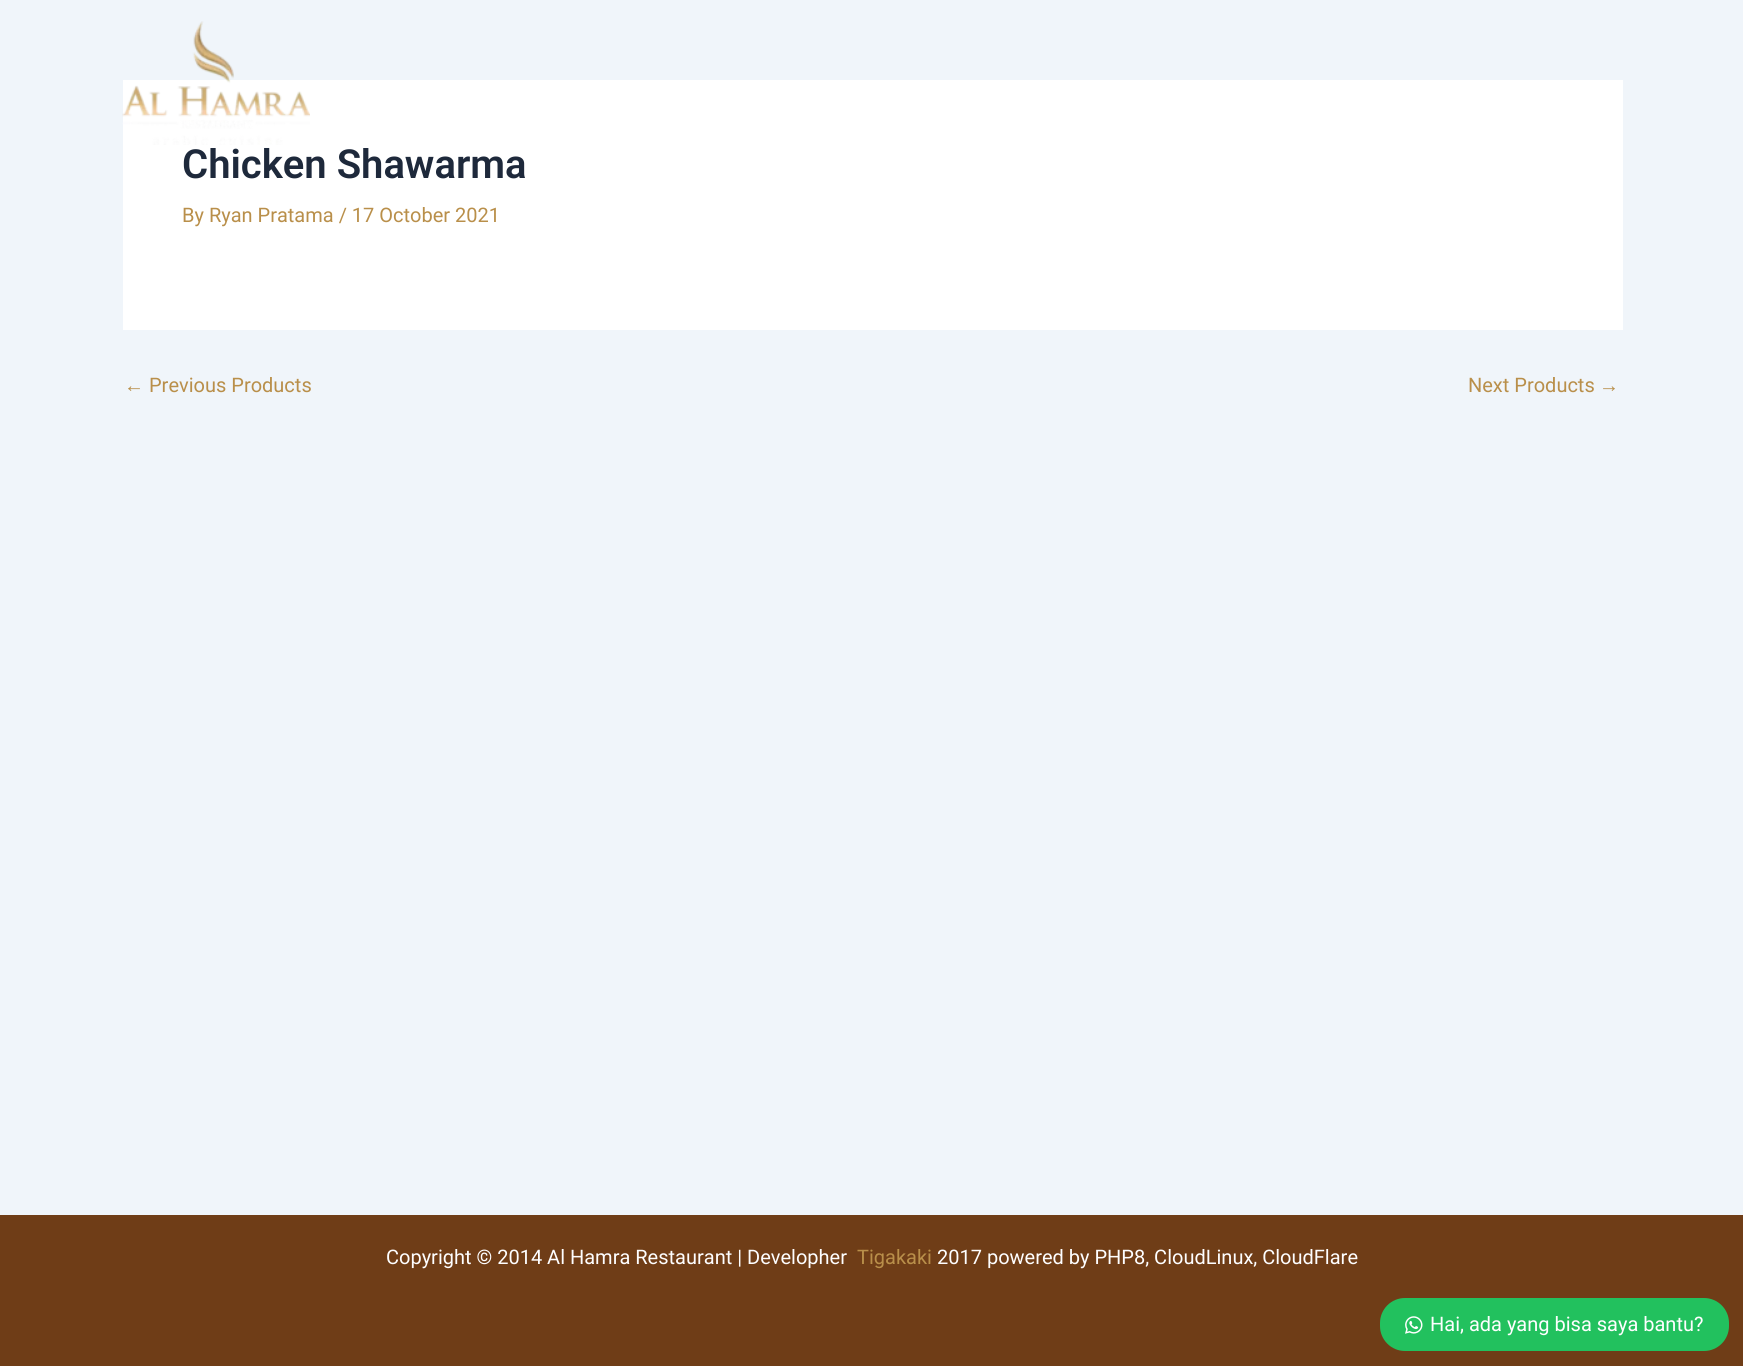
import math
import cairocffi as cairo

surface = cairo.ImageSurface(cairo.FORMAT_RGB24, 1743, 1366)
cr = cairo.Context(surface)
options = cairo.FontOptions()
options.set_hint_metrics(cairo.HINT_METRICS_OFF)
options.set_hint_style(cairo.HINT_STYLE_NONE)
cr.set_font_options(options)
cr.set_miter_limit(4)


def use_color(code):
    cr.set_source_rgb(*(v / 255 for v in bytes.fromhex(code[-6:])))


def round_rect(x, y, w, h, r):
    cr.new_sub_path()
    for i, (u, v) in enumerate([(x + w - r, y + h - r), (x + r, y + h - r), (x + r, y + r), (x + w - r, y + r)]):
        cr.arc(u, v, r, i * math.pi / 2, (i + 1) * math.pi / 2)
    cr.close_path()


def picture(path, x, y, w, h):
    cr.save()
    cr.set_source_surface(cairo.ImageSurface.create_from_png(path), x, y)
    cr.rectangle(x, y, w, h)
    cr.fill()
    cr.restore()


use_color("#f0f5fa")
cr.paint()
use_color("#ffffff")
cr.rectangle(123, 80, 1500, 250)
cr.fill()
picture("img1.png", 122, 21, 188, 124)
cr.select_font_face("Roboto SemiBold")
cr.set_font_size(40)
use_color("#1e293b")
cr.move_to(182, 178)
cr.show_text("Chicken Shawarma")
cr.select_font_face("Roboto")
cr.set_font_size(20)
use_color("#b98f4a")
cr.move_to(182, 222)
cr.show_text("By Ryan Pratama / 17 October 2021")
cr.select_font_face("Liberation Sans")
cr.move_to(124, 392)
cr.show_text("←")
cr.select_font_face("Roboto")
cr.move_to(149, 392)
cr.show_text("Previous Products")
cr.move_to(1468, 392)
cr.show_text("Next Products")
cr.select_font_face("Liberation Sans")
cr.move_to(1599, 392)
cr.show_text("→")
use_color("#6f3d17")
cr.rectangle(0, 1215, 1743, 151)
cr.fill()
cr.select_font_face("Roboto")
use_color("#fefeff")
cr.move_to(386, 1264)
cr.show_text("Copyright © 2014 Al Hamra Restaurant | Developher")
use_color("#b98f4a")
cr.move_to(857, 1264)
cr.show_text("Tigakaki")
use_color("#fefeff")
cr.move_to(937, 1264)
cr.show_text("2017 powered by PHP8, CloudLinux, CloudFlare")
use_color("#22c15e")
round_rect(1380, 1298, 349, 53, 25)
cr.fill()
picture("img2.png", 1405, 1316, 18, 18)
use_color("#fefeff")
cr.move_to(1430, 1331)
cr.show_text("Hai, ada yang bisa saya bantu?")
surface.write_to_png("result.png")
